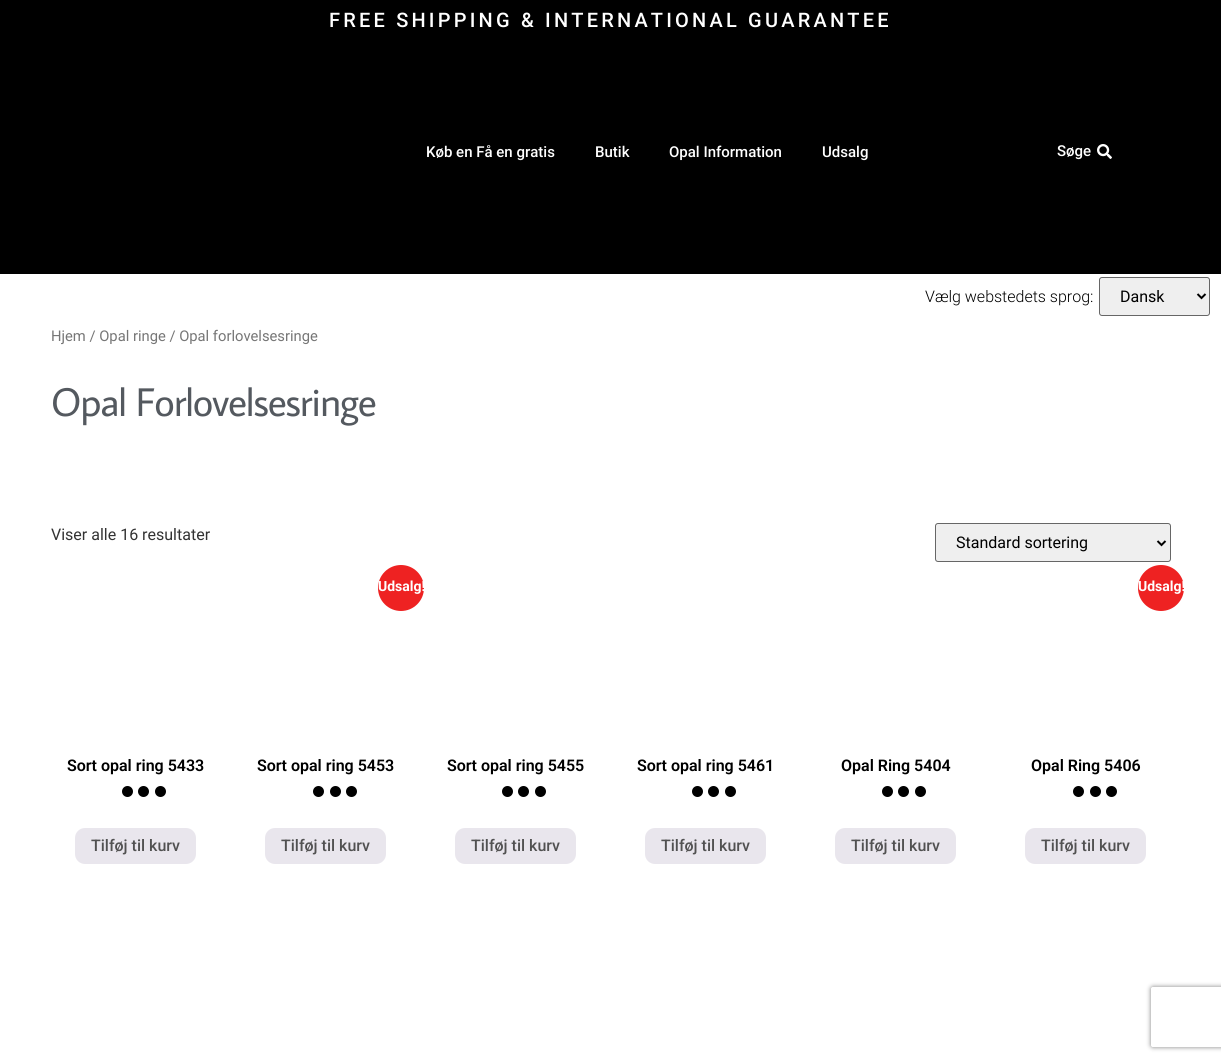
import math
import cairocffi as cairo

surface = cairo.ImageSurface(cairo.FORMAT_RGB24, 1221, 1061)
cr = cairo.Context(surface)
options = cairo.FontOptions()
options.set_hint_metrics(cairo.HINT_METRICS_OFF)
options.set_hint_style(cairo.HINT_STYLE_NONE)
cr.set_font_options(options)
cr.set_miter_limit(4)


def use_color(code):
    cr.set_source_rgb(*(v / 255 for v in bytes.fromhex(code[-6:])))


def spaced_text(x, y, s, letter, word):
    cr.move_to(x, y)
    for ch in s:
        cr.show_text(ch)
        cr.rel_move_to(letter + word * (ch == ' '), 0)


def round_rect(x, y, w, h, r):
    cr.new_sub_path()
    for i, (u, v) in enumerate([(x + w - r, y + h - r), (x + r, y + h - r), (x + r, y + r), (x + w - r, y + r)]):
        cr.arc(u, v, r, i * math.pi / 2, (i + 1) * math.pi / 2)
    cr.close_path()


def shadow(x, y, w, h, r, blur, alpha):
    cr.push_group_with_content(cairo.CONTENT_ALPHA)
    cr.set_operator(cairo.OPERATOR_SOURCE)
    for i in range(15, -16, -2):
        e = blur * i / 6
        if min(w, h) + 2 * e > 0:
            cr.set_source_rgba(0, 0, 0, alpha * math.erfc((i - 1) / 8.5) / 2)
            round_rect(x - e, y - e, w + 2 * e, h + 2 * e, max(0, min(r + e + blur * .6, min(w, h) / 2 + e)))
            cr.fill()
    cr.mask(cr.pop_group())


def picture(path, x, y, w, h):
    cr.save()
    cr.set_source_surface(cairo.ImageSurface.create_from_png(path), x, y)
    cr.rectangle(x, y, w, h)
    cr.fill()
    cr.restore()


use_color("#ffffff")
cr.paint()
use_color("#000000")
cr.rectangle(0, 0, 1221, 274)
cr.fill()
cr.select_font_face("Roboto Medium")
cr.set_font_size(20)
use_color("#ffffff")
spaced_text(329, 27, "FREE SHIPPING & INTERNATIONAL GUARANTEE", 3.2, 0)
cr.set_font_size(15)
cr.move_to(426, 157)
cr.show_text("Køb en Få en gratis")
cr.move_to(595, 157)
cr.show_text("Butik")
cr.move_to(669, 157)
cr.show_text("Opal Information")
cr.move_to(822, 157)
cr.show_text("Udsalg")
cr.move_to(1057, 156)
cr.show_text("Søge")
picture("img1.png", 1097, 144, 15, 15)
cr.select_font_face("Roboto Light")
cr.set_font_size(16)
use_color("#000000")
cr.move_to(925, 302)
cr.show_text("Vælg webstedets sprog:")
use_color("#efefef")
round_rect(1099.5, 277.5, 110, 38, 2.5)
cr.fill_preserve()
use_color("#666666")
cr.set_line_width(1)
cr.stroke()
cr.new_path()
cr.move_to(1197.5, 294)
cr.line_to(1201.5, 298)
cr.line_to(1205.5, 294)
use_color("#000000")
cr.set_line_width(2)
cr.stroke()
cr.select_font_face("Roboto")
cr.move_to(1120, 302)
cr.show_text("Dansk")
cr.set_font_size(14.75)
use_color("#767676")
cr.move_to(51, 341)
cr.show_text("Hjem / Opal ringe / Opal forlovelsesringe")
cr.select_font_face("Average Sans")
cr.set_font_size(40)
use_color("#54595f")
spaced_text(51, 416, "Opal Forlovelsesringe", -1.1, 0)
cr.select_font_face("Roboto")
cr.set_font_size(16)
use_color("#333333")
cr.move_to(51, 540)
cr.show_text("Viser alle 16 resultater")
use_color("#efefef")
round_rect(935.5, 523.5, 235, 38, 2.5)
cr.fill_preserve()
use_color("#666666")
cr.set_line_width(1)
cr.stroke()
cr.new_path()
cr.move_to(1157.5, 541)
cr.line_to(1161.5, 545)
cr.line_to(1165.5, 541)
use_color("#000000")
cr.set_line_width(2)
cr.stroke()
cr.move_to(956, 548)
cr.show_text("Standard sortering")
cr.select_font_face("Roboto SemiBold")
cr.move_to(67, 771)
cr.show_text("Sort opal ring 5433")
cr.new_path()
cr.arc(143.5, 791.5, 5.5, 0, 2 * math.pi)
cr.fill()
cr.arc(127.5, 791.5, 5.5, 0, 2 * math.pi)
cr.fill()
cr.arc(160.5, 791.5, 5.5, 0, 2 * math.pi)
cr.fill()
use_color("#e9e6ed")
round_rect(75, 828, 121, 36, 10)
cr.fill()
cr.select_font_face("Roboto Medium")
use_color("#515151")
cr.move_to(91, 851)
cr.show_text("Tilføj til kurv")
use_color("#ee2222")
cr.new_path()
cr.arc(401, 588, 23, 0, 2 * math.pi)
cr.fill()
cr.select_font_face("Roboto", cairo.FONT_SLANT_NORMAL, cairo.FONT_WEIGHT_BOLD)
cr.set_font_size(14)
use_color("#ffffff")
cr.move_to(378, 591)
cr.show_text("Udsalg!")
cr.select_font_face("Roboto SemiBold")
cr.set_font_size(16)
use_color("#000000")
cr.move_to(257, 771)
cr.show_text("Sort opal ring 5453")
cr.new_path()
cr.arc(335.5, 791.5, 5.5, 0, 2 * math.pi)
cr.fill()
cr.arc(318.5, 791.5, 5.5, 0, 2 * math.pi)
cr.fill()
cr.arc(351.5, 791.5, 5.5, 0, 2 * math.pi)
cr.fill()
use_color("#e9e6ed")
round_rect(265, 828, 121, 36, 10)
cr.fill()
cr.select_font_face("Roboto Medium")
use_color("#515151")
cr.move_to(281, 851)
cr.show_text("Tilføj til kurv")
cr.select_font_face("Roboto SemiBold")
use_color("#000000")
cr.move_to(447, 771)
cr.show_text("Sort opal ring 5455")
cr.new_path()
cr.arc(523.5, 791.5, 5.5, 0, 2 * math.pi)
cr.fill()
cr.arc(507.5, 791.5, 5.5, 0, 2 * math.pi)
cr.fill()
cr.arc(540.5, 791.5, 5.5, 0, 2 * math.pi)
cr.fill()
use_color("#e9e6ed")
round_rect(455, 828, 121, 36, 10)
cr.fill()
cr.select_font_face("Roboto Medium")
use_color("#515151")
cr.move_to(471, 851)
cr.show_text("Tilføj til kurv")
cr.select_font_face("Roboto SemiBold")
use_color("#000000")
cr.move_to(637, 771)
cr.show_text("Sort opal ring 5461")
cr.new_path()
cr.arc(713.5, 791.5, 5.5, 0, 2 * math.pi)
cr.fill()
cr.arc(697.5, 791.5, 5.5, 0, 2 * math.pi)
cr.fill()
cr.arc(730.5, 791.5, 5.5, 0, 2 * math.pi)
cr.fill()
use_color("#e9e6ed")
round_rect(645, 828, 121, 36, 10)
cr.fill()
cr.select_font_face("Roboto Medium")
use_color("#515151")
cr.move_to(661, 851)
cr.show_text("Tilføj til kurv")
cr.select_font_face("Roboto SemiBold")
use_color("#000000")
cr.move_to(841, 771)
cr.show_text("Opal Ring 5404")
cr.new_path()
cr.arc(903.5, 791.5, 5.5, 0, 2 * math.pi)
cr.fill()
cr.arc(887.5, 791.5, 5.5, 0, 2 * math.pi)
cr.fill()
cr.arc(920.5, 791.5, 5.5, 0, 2 * math.pi)
cr.fill()
use_color("#e9e6ed")
round_rect(835, 828, 121, 36, 10)
cr.fill()
cr.select_font_face("Roboto Medium")
use_color("#515151")
cr.move_to(851, 851)
cr.show_text("Tilføj til kurv")
use_color("#ee2222")
cr.new_path()
cr.arc(1161, 588, 23, 0, 2 * math.pi)
cr.fill()
cr.select_font_face("Roboto", cairo.FONT_SLANT_NORMAL, cairo.FONT_WEIGHT_BOLD)
cr.set_font_size(14)
use_color("#ffffff")
cr.move_to(1138, 591)
cr.show_text("Udsalg!")
cr.select_font_face("Roboto SemiBold")
cr.set_font_size(16)
use_color("#000000")
cr.move_to(1031, 771)
cr.show_text("Opal Ring 5406")
cr.new_path()
cr.arc(1095.5, 791.5, 5.5, 0, 2 * math.pi)
cr.fill()
cr.arc(1078.5, 791.5, 5.5, 0, 2 * math.pi)
cr.fill()
cr.arc(1111.5, 791.5, 5.5, 0, 2 * math.pi)
cr.fill()
use_color("#e9e6ed")
round_rect(1025, 828, 121, 36, 10)
cr.fill()
cr.select_font_face("Roboto Medium")
use_color("#515151")
cr.move_to(1041, 851)
cr.show_text("Tilføj til kurv")
cr.save()
cr.set_fill_rule(cairo.FILL_RULE_EVEN_ODD)
cr.new_path()
cr.move_to(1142, 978)
cr.line_to(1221, 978)
cr.line_to(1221, 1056)
cr.line_to(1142, 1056)
cr.close_path()
cr.move_to(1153, 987)
cr.line_to(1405, 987)
cr.curve_to(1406, 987, 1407, 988, 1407, 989)
cr.line_to(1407, 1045)
cr.curve_to(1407, 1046, 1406, 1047, 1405, 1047)
cr.line_to(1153, 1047)
cr.curve_to(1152, 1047, 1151, 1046, 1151, 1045)
cr.line_to(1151, 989)
cr.curve_to(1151, 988, 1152, 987, 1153, 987)
cr.close_path()
cr.clip()
use_color("#808080")
shadow(1151, 987, 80, 60, 2, 2.5, 1)
cr.restore()
surface.write_to_png("result.png")
